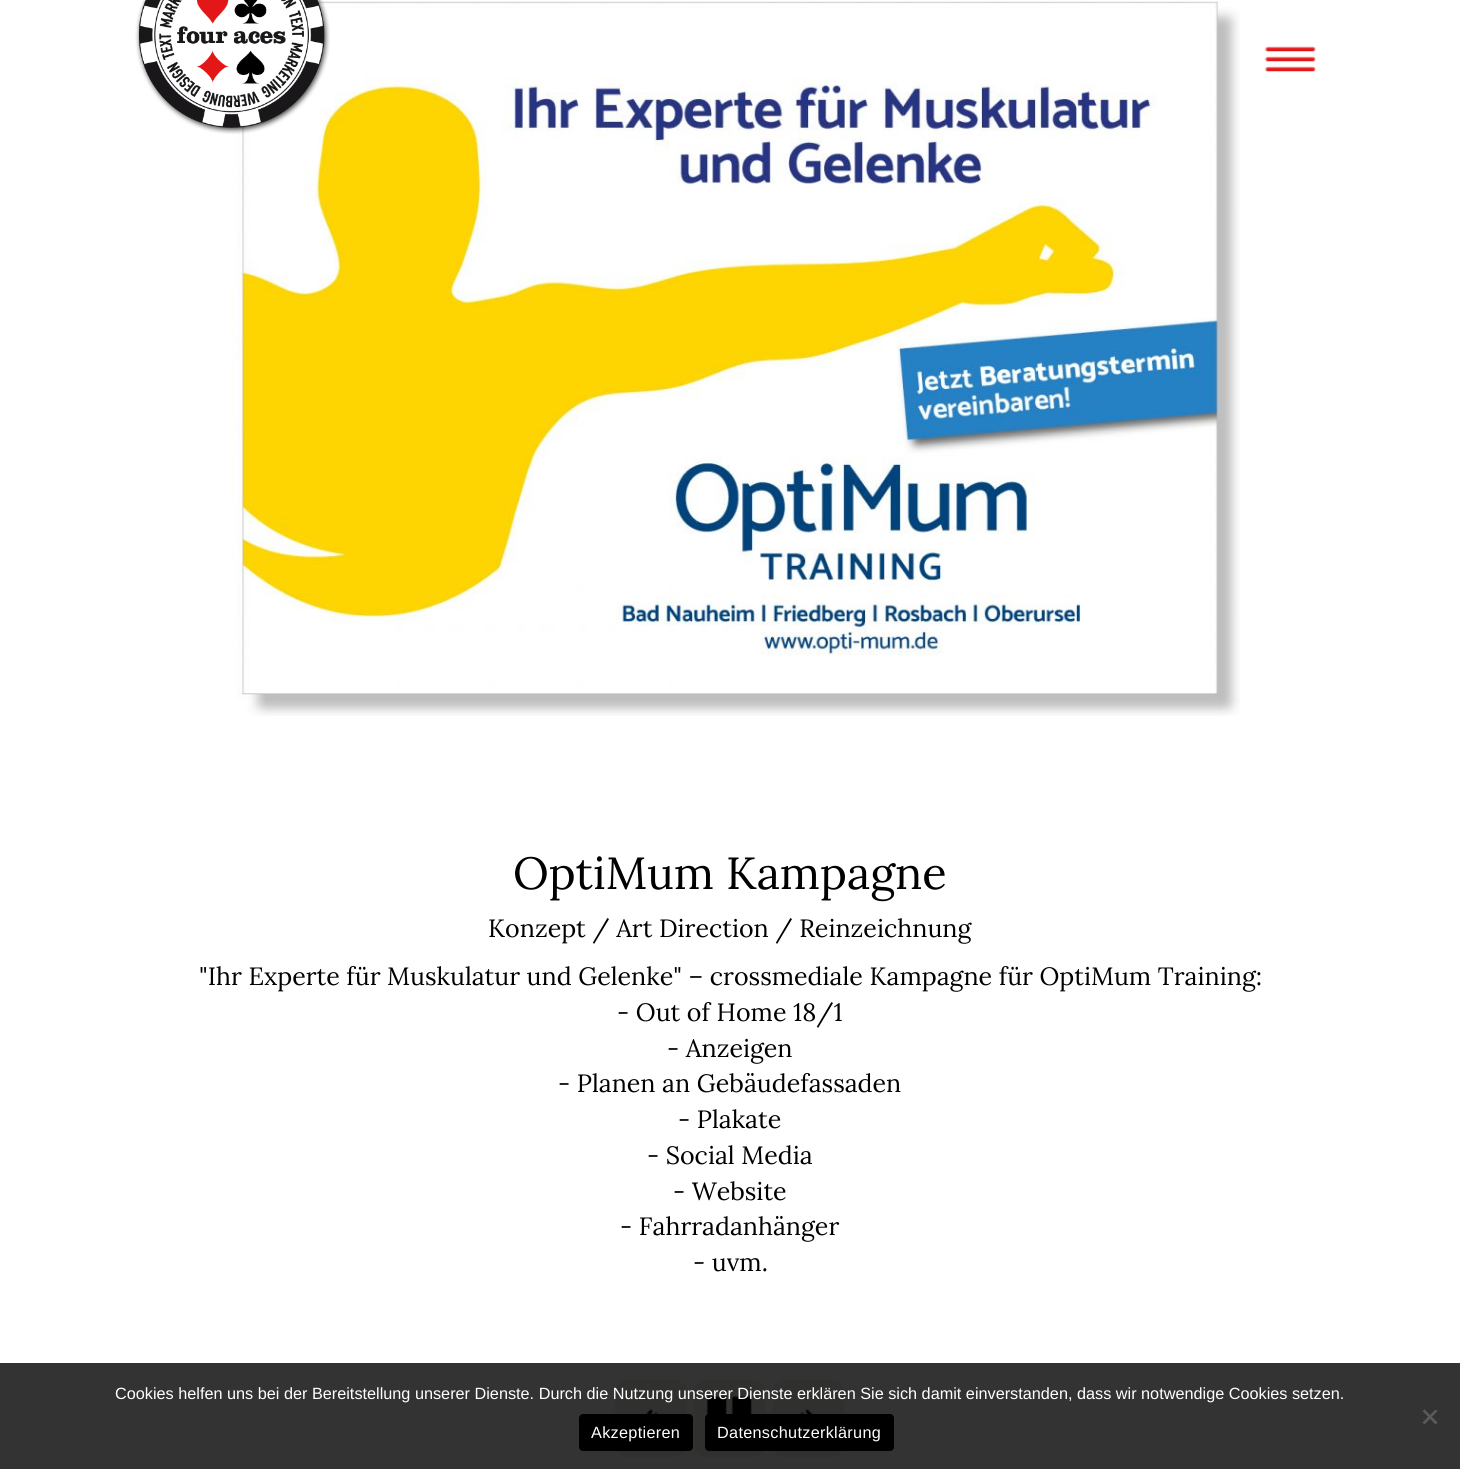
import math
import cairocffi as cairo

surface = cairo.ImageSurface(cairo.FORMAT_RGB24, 1460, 1469)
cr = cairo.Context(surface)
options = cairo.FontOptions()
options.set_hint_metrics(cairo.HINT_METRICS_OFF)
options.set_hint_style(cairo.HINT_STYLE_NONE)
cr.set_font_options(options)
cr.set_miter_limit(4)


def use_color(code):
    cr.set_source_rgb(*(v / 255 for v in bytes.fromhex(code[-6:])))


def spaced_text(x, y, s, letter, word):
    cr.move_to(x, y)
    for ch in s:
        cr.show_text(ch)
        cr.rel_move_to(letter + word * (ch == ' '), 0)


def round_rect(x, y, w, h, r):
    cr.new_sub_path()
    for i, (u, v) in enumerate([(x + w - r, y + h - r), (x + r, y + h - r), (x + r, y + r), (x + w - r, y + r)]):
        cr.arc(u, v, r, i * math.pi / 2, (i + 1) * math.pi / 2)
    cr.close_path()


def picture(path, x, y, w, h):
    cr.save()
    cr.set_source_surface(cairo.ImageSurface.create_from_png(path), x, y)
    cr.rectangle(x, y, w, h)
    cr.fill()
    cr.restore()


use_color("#ffffff")
cr.paint()
use_color("#333333")
cr.rectangle(0, 1363, 1460, 106)
cr.fill()
picture("img5.png", 232, 1, 1008, 715)
picture("img1.png", 135, 0, 195, 134)
picture("img2.png", 1264, 46, 52, 6)
picture("img3.png", 1264, 56, 52, 6)
picture("img4.png", 1264, 66, 52, 6)
cr.select_font_face("Lora")
cr.set_font_size(45)
use_color("#000000")
cr.move_to(513, 889)
cr.show_text("OptiMum Kampagne")
cr.set_font_size(25)
cr.move_to(488, 937)
cr.show_text("Konzept / Art Direction / Reinzeichnung")
cr.move_to(199, 985)
cr.show_text("\"Ihr Experte für Muskulatur und Gelenke\" – crossmediale Kampagne für OptiMum Training:")
cr.move_to(617, 1021)
cr.show_text("- Out of Home 18/1")
cr.move_to(667, 1057)
cr.show_text("- Anzeigen")
cr.move_to(558, 1092)
cr.show_text("- Planen an Gebäudefassaden")
cr.move_to(678, 1128)
cr.show_text("- Plakate")
cr.move_to(647, 1164)
cr.show_text("- Social Media")
cr.move_to(673, 1200)
cr.show_text("- Website")
cr.move_to(620, 1235)
cr.show_text("- Fahrradanhänger")
cr.move_to(693, 1271)
cr.show_text("- uvm.")
picture("img6.png", 614, 1380, 74, 78)
picture("img7.png", 693, 1380, 73, 78)
picture("img8.png", 772, 1380, 75, 78)
cr.select_font_face("Liberation Sans")
cr.set_font_size(16.25)
use_color("#ffffff")
cr.move_to(115, 1399)
cr.show_text("Cookies helfen uns bei der Bereitstellung unserer Dienste. Durch die Nutzung unserer Dienste erklären Sie sich damit einverstanden, dass wir notwendige Cookies setzen.")
use_color("#5a5a5a")
cr.new_path()
cr.move_to(1435.5, 1409.5)
cr.line_to(1437.5, 1411)
cr.line_to(1424.5, 1424.5)
cr.line_to(1422.5, 1422.5)
cr.close_path()
cr.fill()
cr.new_path()
cr.move_to(1422.5, 1411)
cr.line_to(1424.5, 1409.5)
cr.line_to(1437.5, 1422.5)
cr.line_to(1435.5, 1424.5)
cr.close_path()
cr.fill()
use_color("#000000")
round_rect(579, 1414, 114, 37, 4)
cr.fill()
use_color("#ffffff")
spaced_text(591, 1438, "Akzeptieren", 0.3, 0)
use_color("#000000")
round_rect(705, 1414, 189, 37, 4)
cr.fill()
use_color("#ffffff")
spaced_text(717, 1438, "Datenschutzerklärung", 0.3, 0)
surface.write_to_png("result.png")
